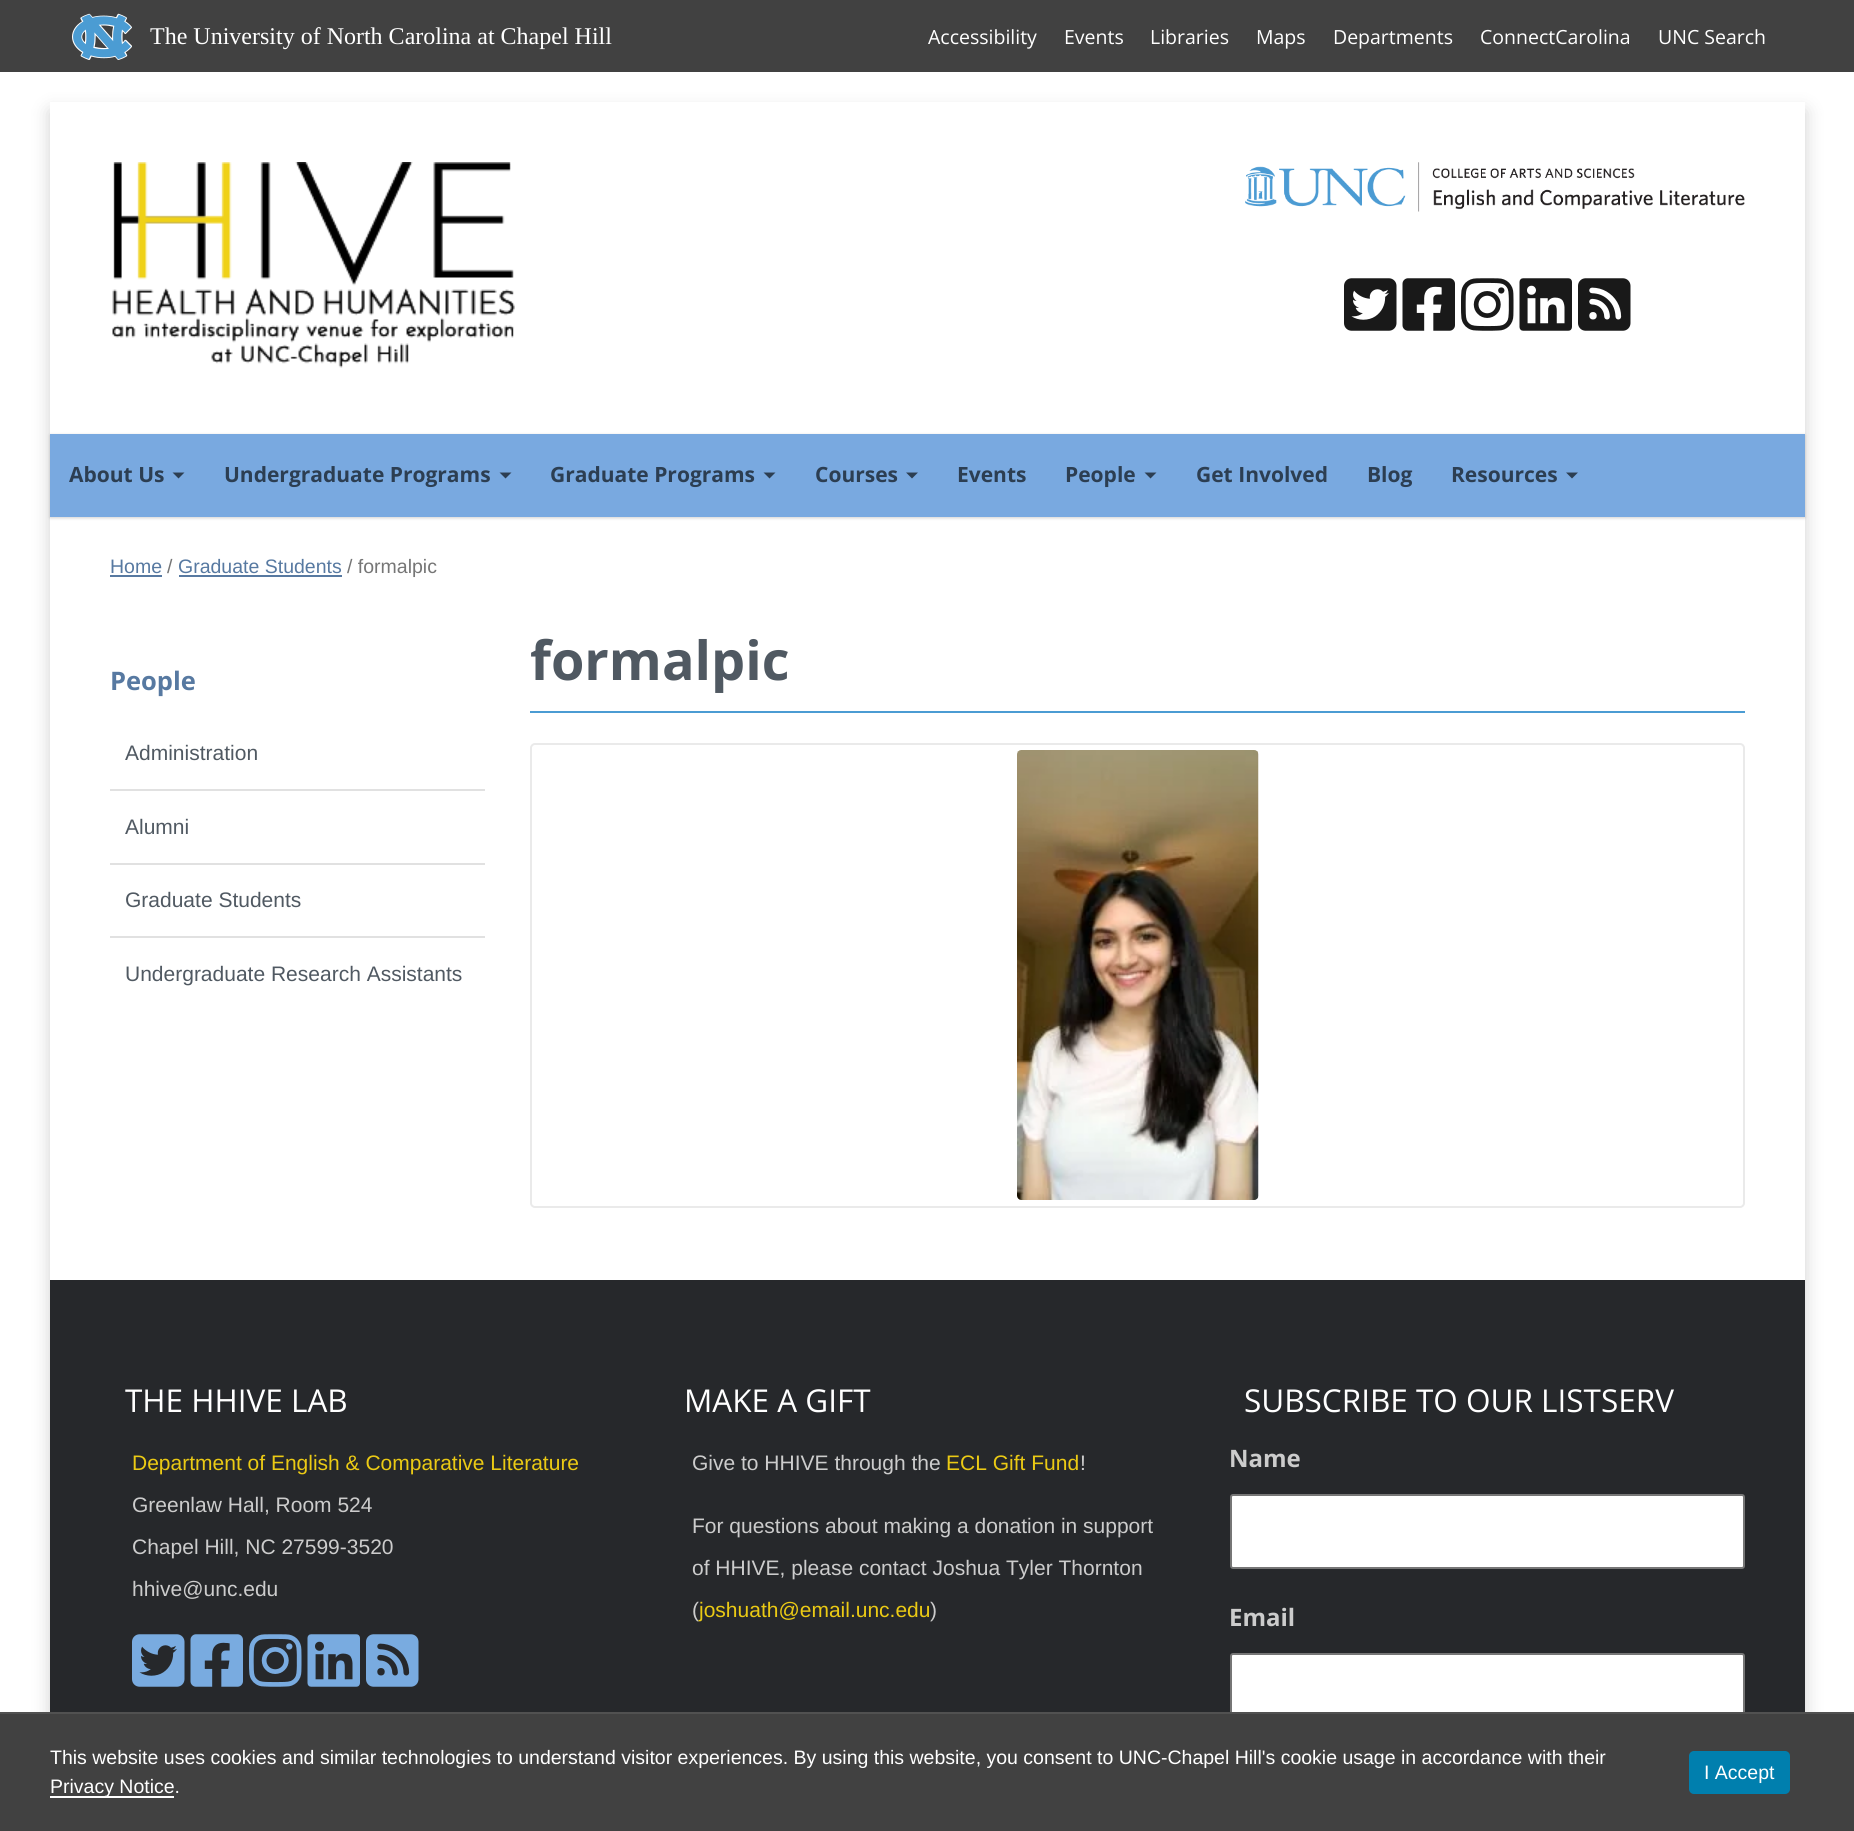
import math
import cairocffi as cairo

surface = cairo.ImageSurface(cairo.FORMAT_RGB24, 1854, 1831)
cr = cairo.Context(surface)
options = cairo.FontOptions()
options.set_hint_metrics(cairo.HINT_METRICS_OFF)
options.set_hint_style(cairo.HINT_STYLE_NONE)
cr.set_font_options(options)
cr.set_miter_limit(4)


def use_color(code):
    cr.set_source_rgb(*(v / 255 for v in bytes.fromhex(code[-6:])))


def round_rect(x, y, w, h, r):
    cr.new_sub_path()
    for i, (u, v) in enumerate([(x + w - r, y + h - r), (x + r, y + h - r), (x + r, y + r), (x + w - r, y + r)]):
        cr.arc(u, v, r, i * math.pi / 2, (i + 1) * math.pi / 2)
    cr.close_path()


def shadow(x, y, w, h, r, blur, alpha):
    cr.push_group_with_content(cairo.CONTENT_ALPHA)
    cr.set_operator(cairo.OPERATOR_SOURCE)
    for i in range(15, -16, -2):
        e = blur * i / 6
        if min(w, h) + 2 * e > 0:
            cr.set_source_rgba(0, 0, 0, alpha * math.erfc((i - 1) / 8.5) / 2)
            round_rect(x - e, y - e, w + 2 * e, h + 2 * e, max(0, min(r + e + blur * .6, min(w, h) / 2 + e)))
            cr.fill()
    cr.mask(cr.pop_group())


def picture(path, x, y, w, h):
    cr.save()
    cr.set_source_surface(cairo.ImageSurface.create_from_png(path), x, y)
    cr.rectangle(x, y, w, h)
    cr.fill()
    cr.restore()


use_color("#ffffff")
cr.paint()
use_color("#414141")
cr.rectangle(0, 0, 1854, 72)
cr.fill()
picture("img1.png", 72, 13, 60, 47)
cr.select_font_face("Liberation Serif")
cr.set_font_size(24)
use_color("#ffffff")
cr.move_to(150, 44)
cr.show_text("The University of North Carolina at Chapel Hill")
cr.select_font_face("Open Sans")
cr.set_font_size(19.5)
cr.move_to(928, 44)
cr.show_text("Accessibility")
cr.move_to(1064, 44)
cr.show_text("Events")
cr.move_to(1150, 44)
cr.show_text("Libraries")
cr.move_to(1256, 44)
cr.show_text("Maps")
cr.move_to(1333, 44)
cr.show_text("Departments")
cr.move_to(1480, 44)
cr.show_text("ConnectCarolina")
cr.move_to(1658, 44)
cr.show_text("UNC Search")
use_color("#000000")
shadow(50, 111, 1755, 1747, 0, 9, 0.18)
use_color("#ffffff")
cr.rectangle(50, 102, 1755, 1178)
cr.fill()
picture("img2.png", 112, 162, 403, 206)
picture("img3.png", 1245, 162, 500, 50)
picture("img4.png", 1344, 278, 53, 53)
picture("img5.png", 1402, 278, 53, 53)
picture("img6.png", 1461, 278, 53, 53)
picture("img7.png", 1519, 278, 53, 53)
picture("img8.png", 1578, 278, 53, 53)
use_color("#646464")
shadow(50, 435, 1755, 83, 0, 1.5, 0.3)
use_color("#79a9e0")
cr.rectangle(50, 434, 1755, 83)
cr.fill()
cr.select_font_face("Open Sans", cairo.FONT_SLANT_NORMAL, cairo.FONT_WEIGHT_BOLD)
cr.set_font_size(21)
use_color("#2c3e52")
cr.move_to(69, 482)
cr.show_text("About Us")
cr.new_path()
cr.move_to(172.5, 472.5)
cr.line_to(184.5, 472.5)
cr.line_to(178.5, 478.5)
cr.close_path()
cr.fill()
cr.move_to(224, 482)
cr.show_text("Undergraduate Programs")
cr.new_path()
cr.move_to(499.5, 472.5)
cr.line_to(511.5, 472.5)
cr.line_to(505.5, 478.5)
cr.close_path()
cr.fill()
cr.move_to(550, 482)
cr.show_text("Graduate Programs")
cr.new_path()
cr.move_to(763.5, 472.5)
cr.line_to(775.5, 472.5)
cr.line_to(769.5, 478.5)
cr.close_path()
cr.fill()
cr.move_to(815, 482)
cr.show_text("Courses")
cr.new_path()
cr.move_to(906, 472.5)
cr.line_to(918, 472.5)
cr.line_to(912, 478.5)
cr.close_path()
cr.fill()
cr.move_to(957, 482)
cr.show_text("Events")
cr.move_to(1065, 482)
cr.show_text("People")
cr.new_path()
cr.move_to(1144.5, 472.5)
cr.line_to(1156.5, 472.5)
cr.line_to(1150.5, 478.5)
cr.close_path()
cr.fill()
cr.move_to(1196, 482)
cr.show_text("Get Involved")
cr.move_to(1367, 482)
cr.show_text("Blog")
cr.move_to(1451, 482)
cr.show_text("Resources")
cr.new_path()
cr.move_to(1566, 472.5)
cr.line_to(1578, 472.5)
cr.line_to(1572, 478.5)
cr.close_path()
cr.fill()
cr.select_font_face("Liberation Sans")
cr.set_font_size(19.5)
use_color("#5779a1")
cr.move_to(110, 573)
cr.show_text("Home")
cr.rectangle(110, 575, 52, 2)
cr.fill()
use_color("#767676")
cr.move_to(167, 573)
cr.show_text("/")
use_color("#5779a1")
cr.move_to(178, 573)
cr.show_text("Graduate Students")
cr.rectangle(179, 575, 163, 2)
cr.fill()
use_color("#767676")
cr.move_to(347, 573)
cr.show_text("/ formalpic")
cr.select_font_face("Open Sans", cairo.FONT_SLANT_NORMAL, cairo.FONT_WEIGHT_BOLD)
cr.set_font_size(25.5)
use_color("#5779a1")
cr.move_to(110, 690)
cr.show_text("People")
use_color("#e1e1e1")
cr.rectangle(110, 789, 375, 2)
cr.fill()
cr.select_font_face("Liberation Sans")
cr.set_font_size(21)
use_color("#505962")
cr.move_to(125, 760)
cr.show_text("Administration")
use_color("#e1e1e1")
cr.rectangle(110, 863, 375, 2)
cr.fill()
use_color("#505962")
cr.move_to(125, 834)
cr.show_text("Alumni")
use_color("#e1e1e1")
cr.rectangle(110, 936, 375, 2)
cr.fill()
use_color("#505962")
cr.move_to(125, 907)
cr.show_text("Graduate Students")
cr.move_to(125, 981)
cr.show_text("Undergraduate Research Assistants")
use_color("#4b9cd3")
cr.rectangle(530, 711, 1215, 2)
cr.fill()
cr.select_font_face("Open Sans", cairo.FONT_SLANT_NORMAL, cairo.FONT_WEIGHT_BOLD)
cr.set_font_size(54)
use_color("#505962")
cr.move_to(530, 680)
cr.show_text("formalpic")
round_rect(531, 744, 1213, 463, 4)
use_color("#eaeaea")
cr.stroke()
picture("img9.png", 1017, 750, 242, 450)
use_color("#26282b")
cr.rectangle(50, 1280, 1755, 432)
cr.fill()
cr.select_font_face("Open Sans")
cr.set_font_size(31.5)
use_color("#ffffff")
cr.move_to(125, 1412)
cr.show_text("THE HHIVE LAB")
cr.select_font_face("Liberation Sans")
cr.set_font_size(21)
use_color("#ebca14")
cr.move_to(132, 1470)
cr.show_text("Department of English & Comparative Literature")
use_color("#cccccc")
cr.move_to(132, 1512)
cr.show_text("Greenlaw Hall, Room 524")
cr.move_to(132, 1554)
cr.show_text("Chapel Hill, NC 27599-3520")
cr.move_to(132, 1596)
cr.show_text("hhive@unc.edu")
picture("img10.png", 132, 1634, 53, 53)
picture("img11.png", 190, 1634, 53, 53)
picture("img12.png", 249, 1634, 53, 53)
picture("img13.png", 307, 1634, 53, 53)
picture("img14.png", 366, 1634, 53, 53)
cr.select_font_face("Open Sans")
cr.set_font_size(31.5)
use_color("#ffffff")
cr.move_to(684, 1412)
cr.show_text("MAKE A GIFT")
cr.select_font_face("Liberation Sans")
cr.set_font_size(21)
use_color("#cccccc")
cr.move_to(692, 1470)
cr.show_text("Give to HHIVE through the")
use_color("#ebca14")
cr.move_to(946, 1470)
cr.show_text("ECL Gift Fund")
use_color("#cccccc")
cr.move_to(1080, 1470)
cr.show_text("!")
cr.move_to(692, 1533)
cr.show_text("For questions about making a donation in support")
cr.move_to(692, 1575)
cr.show_text("of HHIVE, please contact Joshua Tyler Thornton")
cr.move_to(692, 1617)
cr.show_text("(")
use_color("#ebca14")
cr.move_to(699, 1617)
cr.show_text("joshuath@email.unc.edu")
use_color("#cccccc")
cr.move_to(930, 1617)
cr.show_text(")")
cr.select_font_face("Open Sans")
cr.set_font_size(31.5)
use_color("#ffffff")
cr.move_to(1244, 1412)
cr.show_text("SUBSCRIBE TO OUR LISTSERV")
cr.select_font_face("Open Sans", cairo.FONT_SLANT_NORMAL, cairo.FONT_WEIGHT_BOLD)
cr.set_font_size(24)
use_color("#cccccc")
cr.move_to(1229, 1467)
cr.show_text("Name")
use_color("#ffffff")
round_rect(1231, 1495, 513, 73, 2)
cr.fill_preserve()
use_color("#767676")
cr.stroke()
use_color("#cccccc")
cr.move_to(1229, 1626)
cr.show_text("Email")
use_color("#ffffff")
round_rect(1231, 1654, 513, 73, 2)
cr.fill_preserve()
use_color("#767676")
cr.stroke()
use_color("#414141")
cr.rectangle(0, 1714, 1854, 117)
cr.fill()
use_color("#515151")
cr.rectangle(0, 1712, 1854, 2)
cr.fill()
cr.select_font_face("Liberation Sans")
cr.set_font_size(19.5)
use_color("#ffffff")
cr.move_to(50, 1764)
cr.show_text("This website uses cookies and similar technologies to understand visitor experiences. By using this website, you consent to UNC-Chapel Hill's cookie usage in accordance with their")
cr.rectangle(50, 1796, 124, 2)
cr.fill()
cr.move_to(50, 1793)
cr.show_text("Privacy Notice.")
use_color("#007fae")
round_rect(1689, 1751, 101, 43, 5)
cr.fill()
use_color("#ffffff")
cr.move_to(1704, 1779)
cr.show_text("I Accept")
surface.write_to_png("result.png")
